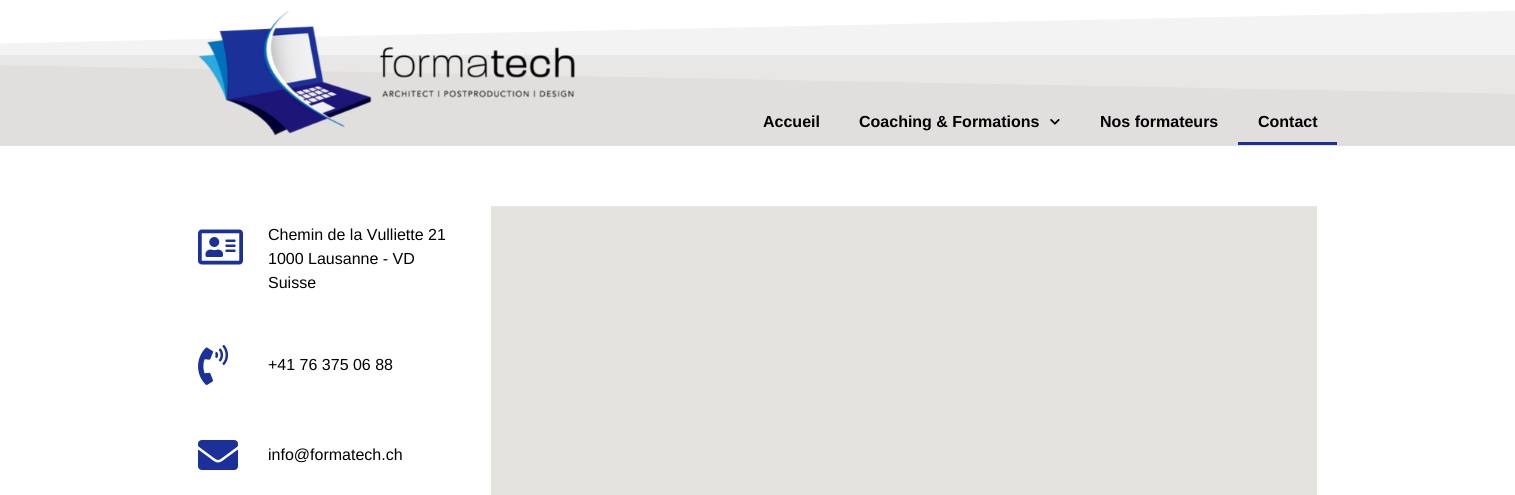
import math
import cairocffi as cairo

surface = cairo.ImageSurface(cairo.FORMAT_RGB24, 1515, 495)
cr = cairo.Context(surface)
options = cairo.FontOptions()
options.set_hint_metrics(cairo.HINT_METRICS_OFF)
options.set_hint_style(cairo.HINT_STYLE_NONE)
cr.set_font_options(options)
cr.set_miter_limit(4)


def use_color(code):
    cr.set_source_rgb(*(v / 255 for v in bytes.fromhex(code[-6:])))


def picture(path, x, y, w, h):
    cr.save()
    cr.set_source_surface(cairo.ImageSurface.create_from_png(path), x, y)
    cr.rectangle(x, y, w, h)
    cr.fill()
    cr.restore()


use_color("#ffffff")
cr.paint()
use_color("#e1dede")
cr.rectangle(0, 55, 1515, 91)
cr.fill()
use_color("#f0efef")
cr.rectangle(0, 10, 1515, 45)
cr.fill()
use_color("#ffffff")
cr.new_path()
cr.move_to(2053, -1)
cr.line_to(-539, -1)
cr.line_to(-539, 55)
cr.close_path()
cr.fill()
cr.set_source_rgba(1, 1, 1, 0.25)
cr.new_path()
cr.move_to(-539, -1)
cr.line_to(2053, -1)
cr.line_to(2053, 104)
cr.line_to(-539, 55)
cr.close_path()
cr.fill()
picture("img1.png", 198, 10, 377, 126)
cr.select_font_face("Liberation Sans", cairo.FONT_SLANT_NORMAL, cairo.FONT_WEIGHT_BOLD)
cr.set_font_size(16)
use_color("#000000")
cr.move_to(763, 127)
cr.show_text("Accueil")
cr.move_to(859, 127)
cr.show_text("Coaching & Formations")
picture("img2.png", 1050, 119, 10, 6)
cr.move_to(1100, 127)
cr.show_text("Nos formateurs")
cr.move_to(1258, 127)
cr.show_text("Contact")
use_color("#1c3099")
cr.rectangle(1238, 142, 99, 3)
cr.fill()
picture("img3.png", 198, 229, 45, 36)
cr.select_font_face("Liberation Sans")
use_color("#000000")
cr.move_to(268, 240)
cr.show_text("Chemin de la Vulliette 21")
cr.move_to(268, 264)
cr.show_text("1000 Lausanne - VD")
cr.move_to(268, 288)
cr.show_text("Suisse")
picture("img4.png", 198, 344, 31, 41)
cr.move_to(268, 370)
cr.show_text("+41 76 375 06 88")
picture("img5.png", 198, 440, 40, 30)
cr.move_to(268, 460)
cr.show_text("info@formatech.ch")
use_color("#e5e3df")
cr.rectangle(491, 206, 826, 289)
cr.fill()
surface.write_to_png("result.png")
